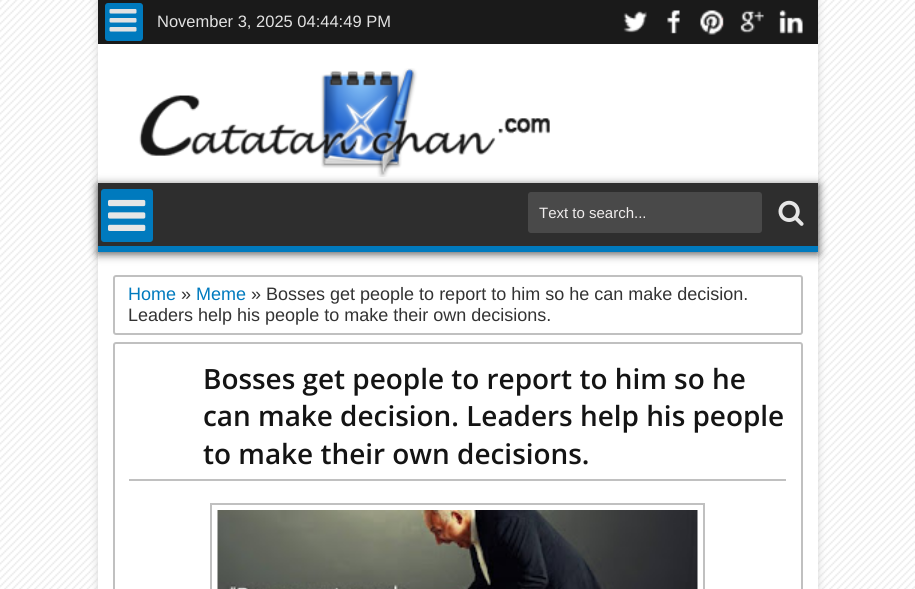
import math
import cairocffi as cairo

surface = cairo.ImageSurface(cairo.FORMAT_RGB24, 915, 589)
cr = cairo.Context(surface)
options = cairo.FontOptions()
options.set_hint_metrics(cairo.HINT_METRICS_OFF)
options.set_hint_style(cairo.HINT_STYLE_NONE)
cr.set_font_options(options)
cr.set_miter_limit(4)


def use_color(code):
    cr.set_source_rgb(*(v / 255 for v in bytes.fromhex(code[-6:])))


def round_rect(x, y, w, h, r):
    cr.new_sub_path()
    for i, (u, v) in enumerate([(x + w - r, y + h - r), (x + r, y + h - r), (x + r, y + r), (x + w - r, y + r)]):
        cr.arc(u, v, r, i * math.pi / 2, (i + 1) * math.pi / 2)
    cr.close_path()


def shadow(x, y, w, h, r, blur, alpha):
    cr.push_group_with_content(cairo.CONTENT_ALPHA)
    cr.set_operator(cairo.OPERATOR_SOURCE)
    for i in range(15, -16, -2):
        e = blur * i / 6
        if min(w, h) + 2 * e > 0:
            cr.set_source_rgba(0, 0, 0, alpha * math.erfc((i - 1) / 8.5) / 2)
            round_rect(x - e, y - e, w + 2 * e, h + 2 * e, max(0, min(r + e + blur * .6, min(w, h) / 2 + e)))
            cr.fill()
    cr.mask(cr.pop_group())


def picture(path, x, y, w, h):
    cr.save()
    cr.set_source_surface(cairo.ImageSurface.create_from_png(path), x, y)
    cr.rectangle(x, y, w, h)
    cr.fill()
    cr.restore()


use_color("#ffffff")
cr.paint()
picture("img1.png", 0, 0, 915, 589)
use_color("#d3d3d3")
shadow(98, 0, 720, 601, 0, 4, 1)
use_color("#ffffff")
cr.rectangle(98, 44, 720, 545)
cr.fill()
use_color("#1a1a1a")
cr.rectangle(98, 0, 720, 44)
cr.fill()
use_color("#007abe")
round_rect(105, 3, 38, 38, 3)
cr.fill()
picture("img2.png", 109, 9, 28, 23)
cr.select_font_face("Liberation Sans")
cr.set_font_size(16.5)
use_color("#e2e2e2")
cr.move_to(157, 27)
cr.show_text("November 3, 2025 04:44:49 PM")
picture("img3.png", 623, 10, 24, 23)
picture("img4.png", 667, 10, 13, 24)
picture("img5.png", 700, 10, 24, 25)
picture("img6.png", 740, 10, 24, 24)
picture("img7.png", 779, 10, 24, 24)
picture("img8.png", 139, 68, 411, 109)
use_color("#585858")
shadow(98, 185, 720, 69, 0, 4.5, 1)
use_color("#2e2e2e")
cr.rectangle(98, 183, 720, 63)
cr.fill()
use_color("#007abe")
cr.rectangle(98, 246, 720, 6)
cr.fill()
round_rect(101, 189, 52, 53, 3)
cr.fill()
picture("img9.png", 108, 199, 38, 32)
use_color("#494949")
round_rect(528, 192, 234, 41, 3)
cr.fill()
cr.set_font_size(15)
use_color("#f0eded")
cr.move_to(539, 218)
cr.show_text("Text to search...")
picture("img10.png", 778, 200, 26, 26)
round_rect(114, 276, 688, 58, 2)
use_color("#c0c0c0")
cr.stroke()
cr.set_font_size(18)
use_color("#007abe")
cr.move_to(128, 300)
cr.show_text("Home")
use_color("#333333")
cr.move_to(181, 300)
cr.show_text("»")
use_color("#007abe")
cr.move_to(196, 300)
cr.show_text("Meme")
use_color("#333333")
cr.move_to(251, 300)
cr.show_text("» Bosses get people to report to him so he can make decision.")
cr.move_to(128, 321)
cr.show_text("Leaders help his people to make their own decisions.")
round_rect(114, 343, 688, 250, 2)
use_color("#c0c0c0")
cr.stroke()
cr.rectangle(129, 479, 657, 2)
cr.fill()
cr.select_font_face("Open Sans SemiBold")
cr.set_font_size(27.9)
use_color("#141414")
cr.move_to(203, 389)
cr.show_text("Bosses get people to report to him so he")
cr.move_to(203, 426)
cr.show_text("can make decision. Leaders help his people")
cr.move_to(203, 464)
cr.show_text("to make their own decisions.")
cr.rectangle(211, 504, 493, 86)
use_color("#c0c0c0")
cr.stroke()
picture("img11.png", 217, 510, 481, 79)
surface.write_to_png("result.png")
